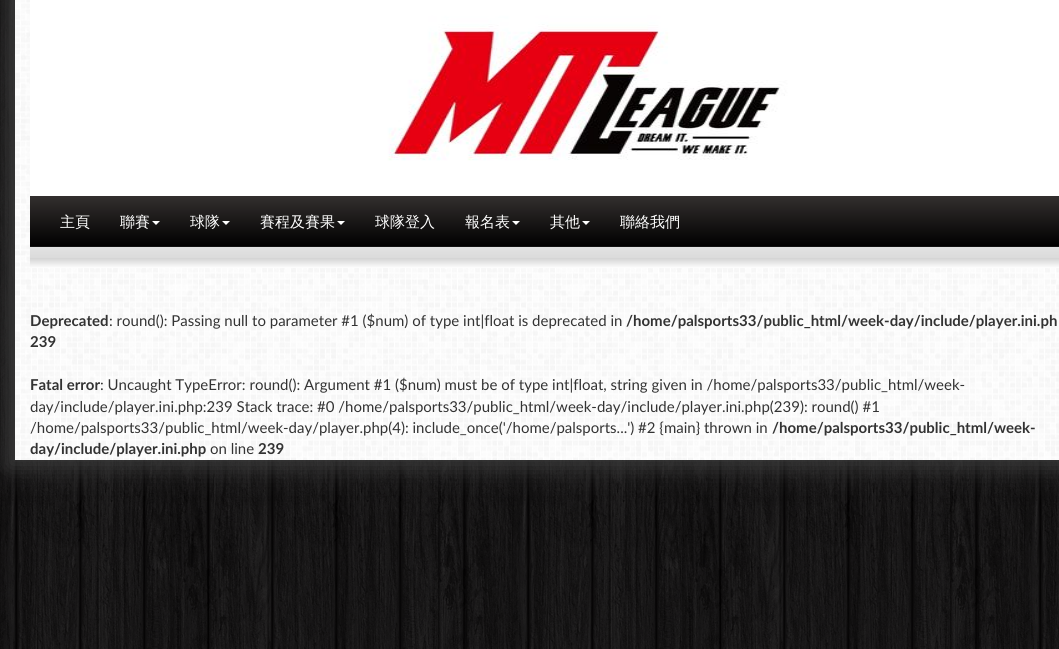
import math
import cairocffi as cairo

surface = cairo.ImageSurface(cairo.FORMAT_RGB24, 1059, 649)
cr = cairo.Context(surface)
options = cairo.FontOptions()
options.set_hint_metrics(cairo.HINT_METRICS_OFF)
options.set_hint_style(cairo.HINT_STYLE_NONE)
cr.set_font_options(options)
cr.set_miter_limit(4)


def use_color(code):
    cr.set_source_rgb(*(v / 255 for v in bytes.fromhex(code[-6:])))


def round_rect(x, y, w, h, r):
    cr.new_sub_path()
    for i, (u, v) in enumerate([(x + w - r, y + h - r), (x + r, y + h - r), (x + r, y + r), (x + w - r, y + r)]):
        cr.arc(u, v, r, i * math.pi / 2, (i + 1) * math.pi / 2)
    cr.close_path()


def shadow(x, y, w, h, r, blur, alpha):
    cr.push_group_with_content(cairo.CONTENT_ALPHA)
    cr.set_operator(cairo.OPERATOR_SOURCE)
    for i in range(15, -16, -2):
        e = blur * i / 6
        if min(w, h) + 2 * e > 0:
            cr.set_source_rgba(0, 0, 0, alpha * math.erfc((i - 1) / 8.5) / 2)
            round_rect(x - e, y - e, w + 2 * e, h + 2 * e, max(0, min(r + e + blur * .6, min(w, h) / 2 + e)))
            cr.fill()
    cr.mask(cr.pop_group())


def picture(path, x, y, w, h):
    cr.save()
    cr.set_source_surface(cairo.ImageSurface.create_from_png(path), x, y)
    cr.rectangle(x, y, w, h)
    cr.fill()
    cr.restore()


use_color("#ffffff")
cr.paint()
picture("img1.png", 0, 0, 1059, 649)
use_color("#3b3b3b")
shadow(7, -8, 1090, 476, 0, 12.5, 1)
picture("img2.png", 15, 0, 1044, 460)
picture("img3.png", 30, 0, 1029, 196)
gradient = cairo.LinearGradient(585, 196, 585, 246)
gradient.add_color_stop_rgba(0, 0.2, 0.184, 0.18, 1)
gradient.add_color_stop_rgba(1, 0, 0, 0, 1)
cr.set_source(gradient)
cr.rectangle(30, 196, 1029, 50)
cr.fill()
use_color("#121212")
cr.rectangle(30, 246, 1029, 1)
cr.fill()
cr.select_font_face("WenQuanYi Zen Hei Medium")
cr.set_font_size(15)
use_color("#ffffff")
cr.move_to(60, 227)
cr.show_text("主頁")
cr.move_to(120, 227)
cr.show_text("聯賽")
cr.new_path()
cr.move_to(152, 221)
cr.line_to(160, 221)
cr.line_to(156, 225)
cr.close_path()
cr.fill()
cr.move_to(190, 227)
cr.show_text("球隊")
cr.new_path()
cr.move_to(222, 221)
cr.line_to(230, 221)
cr.line_to(226, 225)
cr.close_path()
cr.fill()
cr.move_to(260, 227)
cr.show_text("賽程及賽果")
cr.new_path()
cr.move_to(337, 221)
cr.line_to(345, 221)
cr.line_to(341, 225)
cr.close_path()
cr.fill()
cr.move_to(375, 227)
cr.show_text("球隊登入")
cr.move_to(465, 227)
cr.show_text("報名表")
cr.new_path()
cr.move_to(512, 221)
cr.line_to(520, 221)
cr.line_to(516, 225)
cr.close_path()
cr.fill()
cr.move_to(550, 227)
cr.show_text("其他")
cr.new_path()
cr.move_to(582, 221)
cr.line_to(590, 221)
cr.line_to(586, 225)
cr.close_path()
cr.fill()
cr.move_to(620, 227)
cr.show_text("聯絡我們")
gradient = cairo.LinearGradient(585, 247, 585, 268)
gradient.add_color_stop_rgba(0, 0.886, 0.886, 0.886, 1)
gradient.add_color_stop_rgba(0.5, 0.859, 0.859, 0.859, 1)
gradient.add_color_stop_rgba(0.51, 0.82, 0.82, 0.82, 1)
gradient.add_color_stop_rgba(1, 0.996, 0.996, 0.996, 1)
cr.set_source(gradient)
cr.rectangle(30, 247, 1029, 21)
cr.fill()
cr.select_font_face("Lato", cairo.FONT_SLANT_NORMAL, cairo.FONT_WEIGHT_BOLD)
use_color("#333333")
cr.move_to(30, 326)
cr.show_text("Deprecated")
cr.select_font_face("Lato")
cr.move_to(109, 326)
cr.show_text(": round(): Passing null to parameter #1 ($num) of type int|float is deprecated in")
cr.select_font_face("Lato", cairo.FONT_SLANT_NORMAL, cairo.FONT_WEIGHT_BOLD)
cr.move_to(626, 326)
cr.show_text("/home/palsports33/public_html/week-day/include/player.ini.ph")
cr.move_to(30, 347)
cr.show_text("239")
cr.move_to(30, 390)
cr.show_text("Fatal error")
cr.select_font_face("Lato")
cr.move_to(100, 390)
cr.show_text(": Uncaught TypeError: round(): Argument #1 ($num) must be of type int|float, string given in /home/palsports33/public_html/week-")
cr.move_to(30, 412)
cr.show_text("day/include/player.ini.php:239 Stack trace: #0 /home/palsports33/public_html/week-day/include/player.ini.php(239): round() #1")
cr.move_to(30, 433)
cr.show_text("/home/palsports33/public_html/week-day/player.php(4): include_once('/home/palsports...') #2 {main} thrown in")
cr.select_font_face("Lato", cairo.FONT_SLANT_NORMAL, cairo.FONT_WEIGHT_BOLD)
cr.move_to(772, 433)
cr.show_text("/home/palsports33/public_html/week-")
cr.move_to(30, 454)
cr.show_text("day/include/player.ini.php")
cr.select_font_face("Lato")
cr.move_to(210, 454)
cr.show_text("on line")
cr.select_font_face("Lato", cairo.FONT_SLANT_NORMAL, cairo.FONT_WEIGHT_BOLD)
cr.move_to(258, 454)
cr.show_text("239")
surface.write_to_png("result.png")
